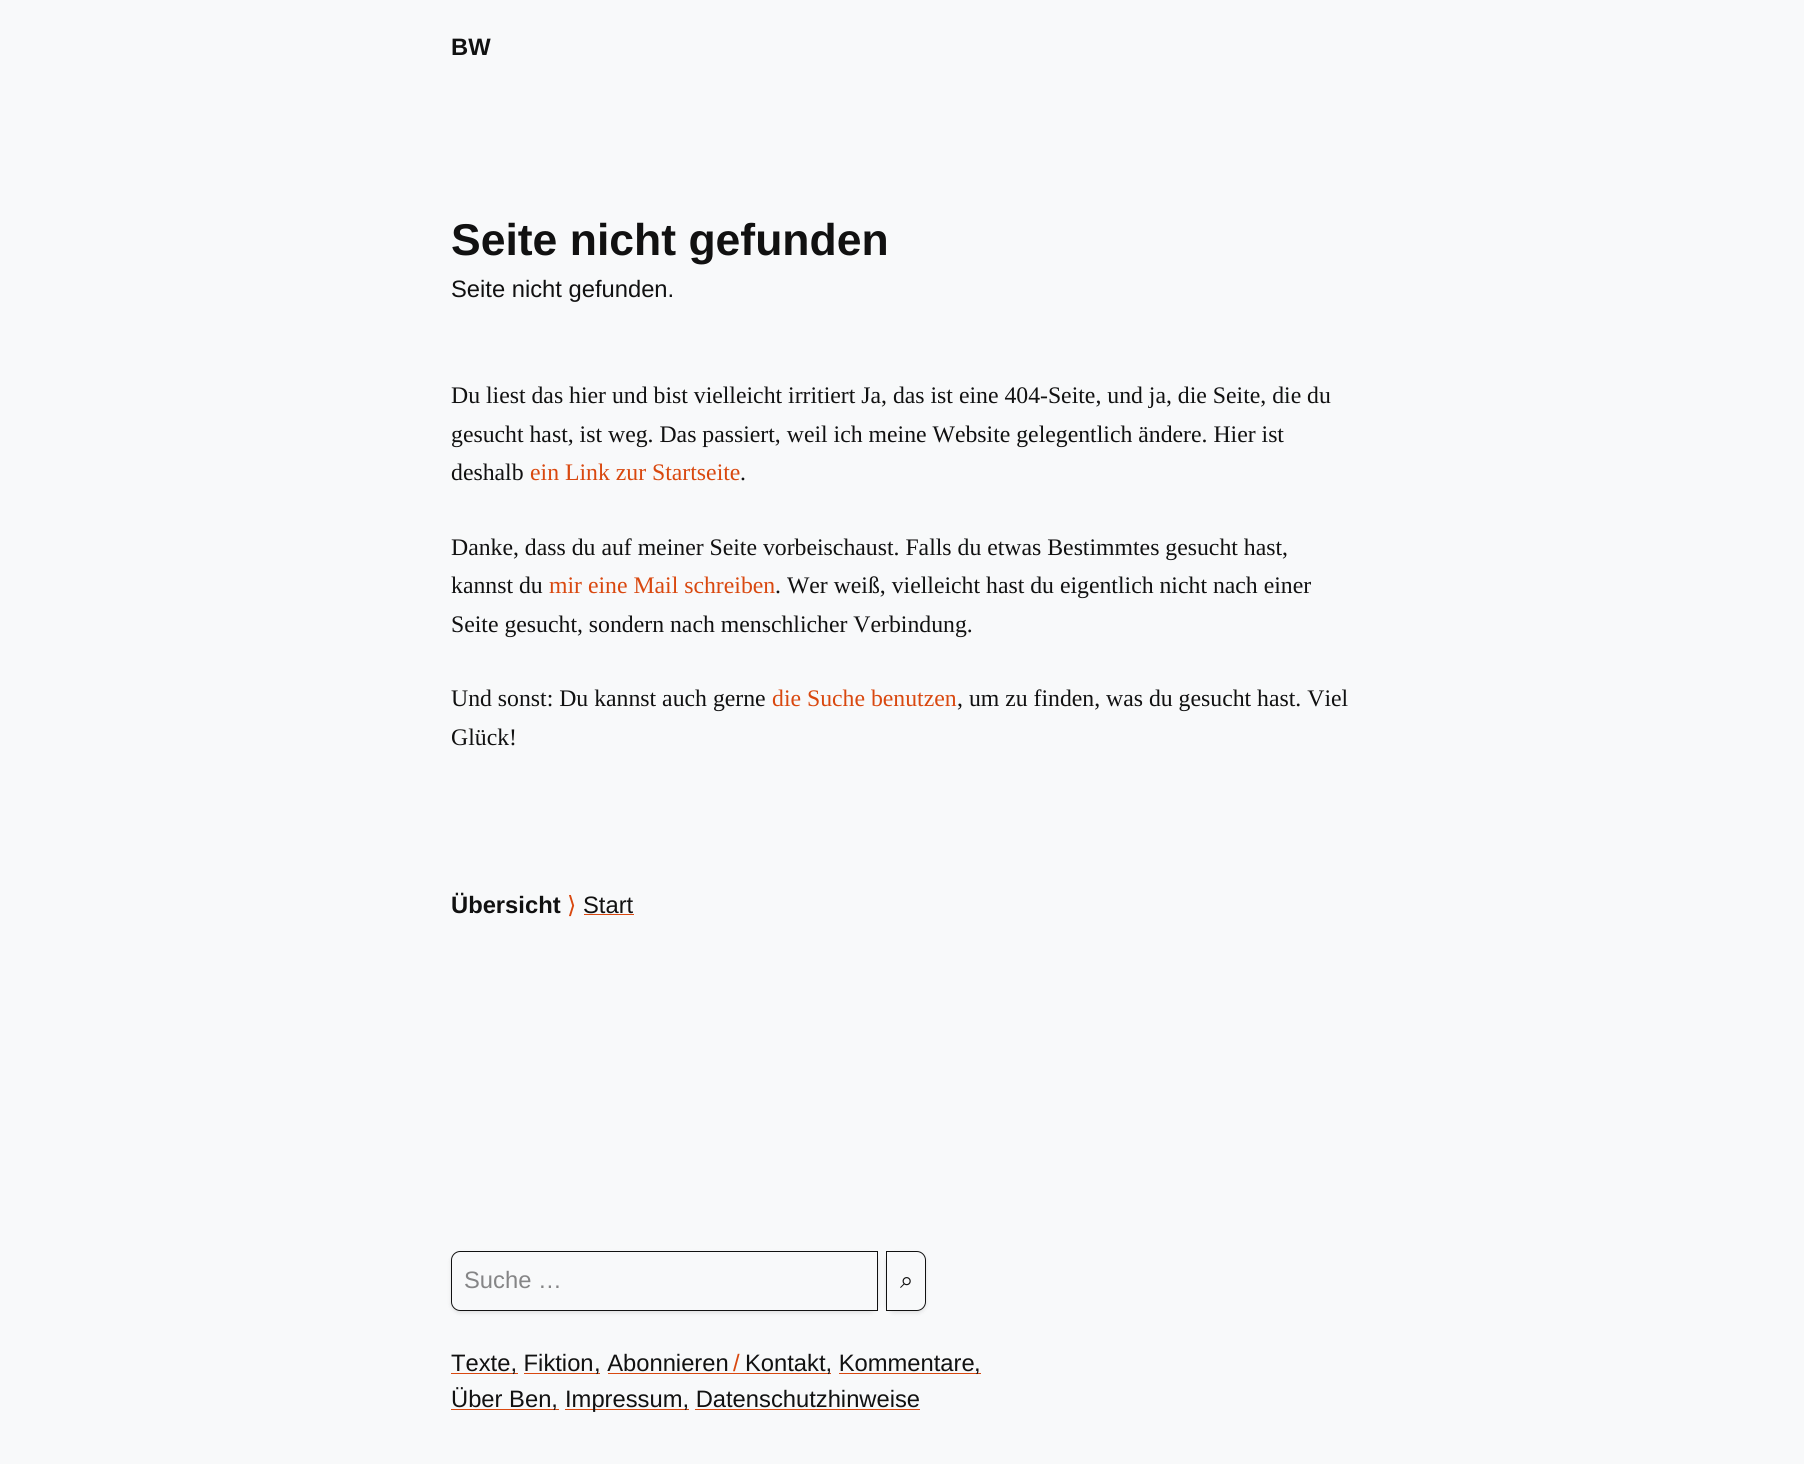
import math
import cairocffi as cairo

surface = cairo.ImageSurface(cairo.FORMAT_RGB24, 1804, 1464)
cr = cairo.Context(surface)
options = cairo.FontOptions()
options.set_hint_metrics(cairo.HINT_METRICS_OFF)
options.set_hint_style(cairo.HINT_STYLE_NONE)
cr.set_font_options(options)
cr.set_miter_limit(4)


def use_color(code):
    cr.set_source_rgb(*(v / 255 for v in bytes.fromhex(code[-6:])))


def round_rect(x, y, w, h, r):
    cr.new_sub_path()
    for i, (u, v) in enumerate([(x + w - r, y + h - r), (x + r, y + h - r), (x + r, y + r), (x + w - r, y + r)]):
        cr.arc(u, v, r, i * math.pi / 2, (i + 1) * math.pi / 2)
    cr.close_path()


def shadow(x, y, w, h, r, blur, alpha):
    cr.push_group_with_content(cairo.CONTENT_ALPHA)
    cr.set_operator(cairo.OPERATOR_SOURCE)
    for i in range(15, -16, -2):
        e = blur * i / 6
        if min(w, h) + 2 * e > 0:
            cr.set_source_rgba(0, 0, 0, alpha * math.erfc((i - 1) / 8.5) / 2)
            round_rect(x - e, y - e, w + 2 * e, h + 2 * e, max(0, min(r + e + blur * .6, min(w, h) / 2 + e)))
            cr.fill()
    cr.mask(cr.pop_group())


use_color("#f8f9fa")
cr.paint()
cr.select_font_face("Liberation Sans", cairo.FONT_SLANT_NORMAL, cairo.FONT_WEIGHT_BOLD)
cr.set_font_size(23.75)
use_color("#111111")
cr.move_to(451, 55)
cr.show_text("BW")
cr.set_font_size(44.5)
cr.move_to(451, 255)
cr.show_text("Seite nicht gefunden")
cr.select_font_face("Liberation Sans")
cr.set_font_size(23.75)
cr.move_to(451, 297)
cr.show_text("Seite nicht gefunden.")
cr.select_font_face("Liberation Serif")
cr.move_to(451, 403)
cr.show_text("Du liest das hier und bist vielleicht irritiert Ja, das ist eine 404-Seite, und ja, die Seite, die du")
cr.move_to(451, 442)
cr.show_text("gesucht hast, ist weg. Das passiert, weil ich meine Website gelegentlich ändere. Hier ist")
cr.move_to(451, 480)
cr.show_text("deshalb")
use_color("#d9480f")
cr.move_to(530, 480)
cr.show_text("ein Link zur Startseite")
use_color("#111111")
cr.move_to(740, 480)
cr.show_text(".")
cr.move_to(451, 555)
cr.show_text("Danke, dass du auf meiner Seite vorbeischaust. Falls du etwas Bestimmtes gesucht hast,")
cr.move_to(451, 593)
cr.show_text("kannst du")
use_color("#d9480f")
cr.move_to(549, 593)
cr.show_text("mir eine Mail schreiben")
use_color("#111111")
cr.move_to(775, 593)
cr.show_text(". Wer weiß, vielleicht hast du eigentlich nicht nach einer")
cr.move_to(451, 632)
cr.show_text("Seite gesucht, sondern nach menschlicher Verbindung.")
cr.move_to(451, 706)
cr.show_text("Und sonst: Du kannst auch gerne")
use_color("#d9480f")
cr.move_to(772, 706)
cr.show_text("die Suche benutzen")
use_color("#111111")
cr.move_to(957, 706)
cr.show_text(", um zu finden, was du gesucht hast. Viel")
cr.move_to(451, 745)
cr.show_text("Glück!")
cr.select_font_face("Liberation Sans", cairo.FONT_SLANT_NORMAL, cairo.FONT_WEIGHT_BOLD)
cr.move_to(451, 913)
cr.show_text("Übersicht")
cr.select_font_face("DejaVu Sans")
use_color("#d9480f")
cr.move_to(567, 913)
cr.show_text("⟩")
cr.select_font_face("Liberation Sans")
use_color("#111111")
cr.move_to(583, 913)
cr.show_text("Start")
use_color("#d9480f")
cr.rectangle(584, 914, 50, 1)
cr.fill()
cr.save()
cr.set_fill_rule(cairo.FILL_RULE_EVEN_ODD)
cr.new_path()
cr.move_to(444, 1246)
cr.line_to(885, 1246)
cr.line_to(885, 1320)
cr.line_to(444, 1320)
cr.close_path()
cr.move_to(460, 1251)
cr.line_to(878, 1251)
cr.line_to(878, 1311)
cr.line_to(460, 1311)
cr.curve_to(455, 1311, 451, 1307, 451, 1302)
cr.line_to(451, 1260)
cr.curve_to(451, 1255, 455, 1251, 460, 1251)
cr.close_path()
cr.clip()
use_color("#000000")
shadow(451, 1253, 427, 60, 9, 2, 0.1)
cr.restore()
cr.new_path()
cr.move_to(460, 1251.5)
cr.line_to(877.5, 1251.5)
cr.line_to(877.5, 1310.5)
cr.line_to(460, 1310.5)
cr.curve_to(455.5, 1310.5, 451.5, 1306.5, 451.5, 1302)
cr.line_to(451.5, 1260)
cr.curve_to(451.5, 1255.5, 455.5, 1251.5, 460, 1251.5)
cr.close_path()
use_color("#111111")
cr.set_line_width(1)
cr.stroke()
use_color("#858586")
cr.move_to(464, 1288)
cr.show_text("Suche …")
cr.save()
cr.set_fill_rule(cairo.FILL_RULE_EVEN_ODD)
cr.new_path()
cr.move_to(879, 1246)
cr.line_to(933, 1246)
cr.line_to(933, 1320)
cr.line_to(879, 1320)
cr.close_path()
cr.move_to(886, 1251)
cr.line_to(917, 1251)
cr.curve_to(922, 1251, 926, 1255, 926, 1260)
cr.line_to(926, 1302)
cr.curve_to(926, 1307, 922, 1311, 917, 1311)
cr.line_to(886, 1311)
cr.close_path()
cr.clip()
use_color("#000000")
shadow(886, 1253, 40, 60, 9, 2, 0.1)
cr.restore()
cr.new_path()
cr.move_to(886.5, 1251.5)
cr.line_to(917, 1251.5)
cr.curve_to(921.5, 1251.5, 925.5, 1255.5, 925.5, 1260)
cr.line_to(925.5, 1302)
cr.curve_to(925.5, 1306.5, 921.5, 1310.5, 917, 1310.5)
cr.line_to(886.5, 1310.5)
cr.close_path()
use_color("#111111")
cr.stroke()
cr.select_font_face("FreeSerif")
cr.move_to(900, 1288)
cr.show_text("⌕")
use_color("#d9480f")
cr.rectangle(451, 1373, 67, 1)
cr.fill()
cr.select_font_face("Liberation Sans")
use_color("#111111")
cr.move_to(451, 1371)
cr.show_text("Texte, Fiktion")
use_color("#d9480f")
cr.rectangle(524, 1373, 76, 1)
cr.fill()
use_color("#111111")
cr.move_to(594, 1371)
cr.show_text(", Abonnieren")
use_color("#d9480f")
cr.move_to(733, 1371)
cr.show_text("/")
cr.rectangle(608, 1373, 223, 1)
cr.fill()
use_color("#111111")
cr.move_to(745, 1371)
cr.show_text("Kontakt, Kommentare")
use_color("#d9480f")
cr.rectangle(839, 1373, 142, 1)
cr.fill()
use_color("#111111")
cr.move_to(974, 1371)
cr.show_text(",")
use_color("#d9480f")
cr.rectangle(451, 1409, 108, 1)
cr.fill()
use_color("#111111")
cr.move_to(451, 1407)
cr.show_text("Über Ben,")
use_color("#d9480f")
cr.rectangle(565, 1409, 124, 1)
cr.fill()
use_color("#111111")
cr.move_to(565, 1407)
cr.show_text("Impressum, Datenschutzhinweise")
use_color("#d9480f")
cr.rectangle(695, 1409, 225, 1)
cr.fill()
surface.write_to_png("result.png")
